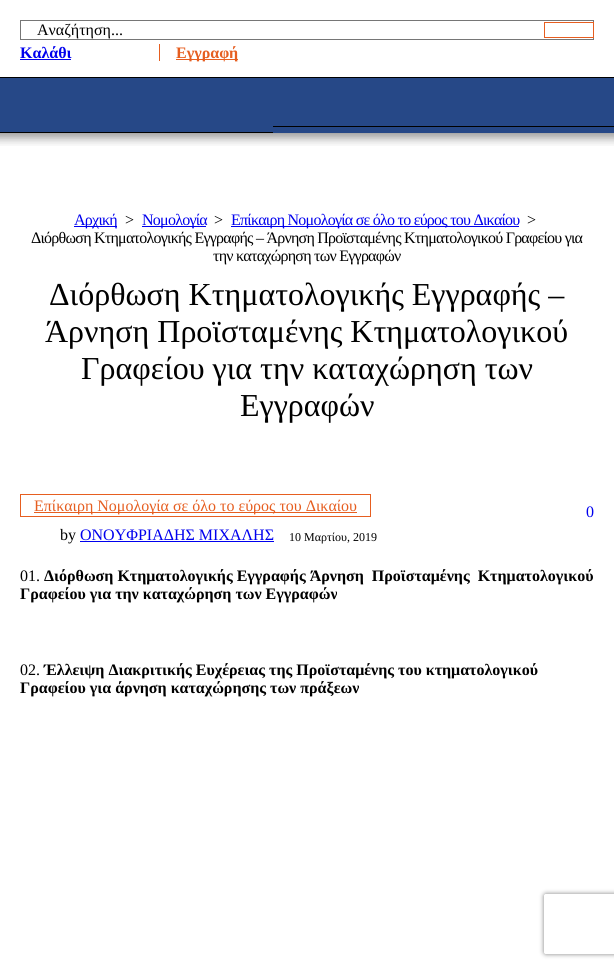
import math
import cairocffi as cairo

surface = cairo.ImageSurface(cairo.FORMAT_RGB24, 614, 968)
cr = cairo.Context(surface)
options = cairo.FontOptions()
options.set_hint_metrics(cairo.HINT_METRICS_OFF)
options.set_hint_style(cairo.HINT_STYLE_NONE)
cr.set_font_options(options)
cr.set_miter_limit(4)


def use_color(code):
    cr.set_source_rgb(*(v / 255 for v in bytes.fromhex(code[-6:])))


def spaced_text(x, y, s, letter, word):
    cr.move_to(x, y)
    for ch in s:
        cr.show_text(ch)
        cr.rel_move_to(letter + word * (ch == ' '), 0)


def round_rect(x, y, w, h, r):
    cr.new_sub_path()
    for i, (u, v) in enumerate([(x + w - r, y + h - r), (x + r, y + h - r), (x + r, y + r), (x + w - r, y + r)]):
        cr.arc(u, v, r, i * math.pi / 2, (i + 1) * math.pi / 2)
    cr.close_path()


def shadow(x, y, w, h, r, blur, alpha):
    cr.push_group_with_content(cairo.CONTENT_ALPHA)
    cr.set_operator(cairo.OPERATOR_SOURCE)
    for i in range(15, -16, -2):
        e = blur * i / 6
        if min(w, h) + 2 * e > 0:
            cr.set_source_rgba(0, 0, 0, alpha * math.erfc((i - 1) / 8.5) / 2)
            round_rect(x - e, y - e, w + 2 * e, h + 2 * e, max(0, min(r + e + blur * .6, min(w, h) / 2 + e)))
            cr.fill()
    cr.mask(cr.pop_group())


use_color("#ffffff")
cr.paint()
cr.save()
cr.rectangle(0, 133, 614, 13)
cr.clip()
use_color("#000000")
shadow(-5, -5, 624, 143, 0, 5, 0.4)
cr.restore()
use_color("#000000")
cr.rectangle(0, 77, 614, 1)
cr.fill()
cr.rectangle(20.5, 20.5, 573, 19)
use_color("#767676")
cr.set_line_width(1)
cr.stroke()
cr.select_font_face("Liberation Serif")
cr.set_font_size(16)
use_color("#000000")
cr.move_to(37, 35)
cr.show_text("Αναζήτηση...")
cr.rectangle(544.5, 22.5, 49, 15)
use_color("#e65e20")
cr.stroke()
cr.select_font_face("Liberation Serif", cairo.FONT_SLANT_NORMAL, cairo.FONT_WEIGHT_BOLD)
use_color("#0000ee")
cr.move_to(20, 58)
cr.show_text("Καλάθι")
cr.rectangle(20, 59, 51, 1)
cr.fill()
use_color("#e65e20")
cr.rectangle(176, 59, 62, 1)
cr.fill()
cr.move_to(176, 58)
cr.show_text("Εγγραφή")
cr.rectangle(159, 44, 1, 17)
cr.fill()
use_color("#264887")
cr.rectangle(0, 78, 614, 55)
cr.fill()
use_color("#000000")
cr.rectangle(273, 126, 341, 1)
cr.fill()
cr.rectangle(0, 132, 273, 1)
cr.fill()
use_color("#0000ee")
cr.rectangle(74, 226, 43, 1)
cr.fill()
cr.select_font_face("Liberation Serif")
spaced_text(74, 225, "Αρχική", -0.75, 0)
use_color("#000000")
spaced_text(125, 225, ">", -0.75, 0)
use_color("#0000ee")
cr.rectangle(142, 226, 64, 1)
cr.fill()
spaced_text(142, 225, "Νομολογία", -0.75, 0)
use_color("#000000")
spaced_text(214, 225, ">", -0.75, 0)
use_color("#0000ee")
cr.rectangle(231, 226, 288, 1)
cr.fill()
spaced_text(231, 225, "Επίκαιρη Νομολογία σε όλο το εύρος του Δικαίου", -0.75, 0)
use_color("#000000")
spaced_text(527, 225, ">", -0.75, 0)
spaced_text(31, 243, "Διόρθωση Κτηματολογικής Εγγραφής – Άρνηση Προϊσταμένης Κτηματολογικού Γραφείου για", -0.75, 0)
spaced_text(213, 261, "την καταχώρηση των Εγγραφών", -0.75, 0)
cr.set_font_size(32)
cr.move_to(49, 305)
cr.show_text("Διόρθωση Κτηματολογικής Εγγραφής –")
cr.move_to(45, 342)
cr.show_text("Άρνηση Προϊσταμένης Κτηματολογικού")
cr.move_to(81, 379)
cr.show_text("Γραφείου για την καταχώρηση των")
cr.move_to(240, 416)
cr.show_text("Εγγραφών")
cr.rectangle(20.5, 494.5, 350, 22)
use_color("#e65e20")
cr.stroke()
cr.rectangle(34, 512, 323, 1)
cr.fill()
cr.set_font_size(16)
cr.move_to(34, 511)
cr.show_text("Επίκαιρη Νομολογία σε όλο το εύρος του Δικαίου")
use_color("#0000ee")
cr.move_to(586, 517)
cr.show_text("0")
use_color("#000000")
cr.move_to(60, 540)
cr.show_text("by")
use_color("#0000ee")
cr.move_to(80, 540)
cr.show_text("ΟΝΟΥΦΡΙΑΔΗΣ ΜΙΧΑΛΗΣ")
cr.rectangle(80, 541, 194, 1)
cr.fill()
cr.set_font_size(12)
use_color("#000000")
cr.move_to(289, 541)
cr.show_text("10 Μαρτίου, 2019")
cr.set_font_size(16)
cr.move_to(20, 581)
cr.show_text("01.")
cr.select_font_face("Liberation Serif", cairo.FONT_SLANT_NORMAL, cairo.FONT_WEIGHT_BOLD)
cr.move_to(44, 581)
cr.show_text("Διόρθωση Κτηματολογικής Εγγραφής Άρνηση  Προϊσταμένης  Κτηματολογικού")
cr.move_to(20, 599)
cr.show_text("Γραφείου για την καταχώρηση των Εγγραφών")
cr.select_font_face("Liberation Serif")
cr.move_to(20, 675)
cr.show_text("02.")
cr.select_font_face("Liberation Serif", cairo.FONT_SLANT_NORMAL, cairo.FONT_WEIGHT_BOLD)
cr.move_to(44, 675)
cr.show_text("Έλλειψη Διακριτικής Ευχέρειας της Προϊσταμένης του κτηματολογικού")
cr.move_to(20, 693)
cr.show_text("Γραφείου για άρνηση καταχώρησης των πράξεων")
cr.save()
cr.set_fill_rule(cairo.FILL_RULE_EVEN_ODD)
cr.new_path()
cr.move_to(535, 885)
cr.line_to(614, 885)
cr.line_to(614, 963)
cr.line_to(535, 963)
cr.close_path()
cr.move_to(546, 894)
cr.line_to(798, 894)
cr.curve_to(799, 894, 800, 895, 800, 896)
cr.line_to(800, 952)
cr.curve_to(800, 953, 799, 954, 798, 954)
cr.line_to(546, 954)
cr.curve_to(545, 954, 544, 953, 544, 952)
cr.line_to(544, 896)
cr.curve_to(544, 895, 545, 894, 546, 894)
cr.close_path()
cr.clip()
use_color("#808080")
shadow(544, 894, 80, 60, 2, 2.5, 1)
cr.restore()
surface.write_to_png("result.png")
